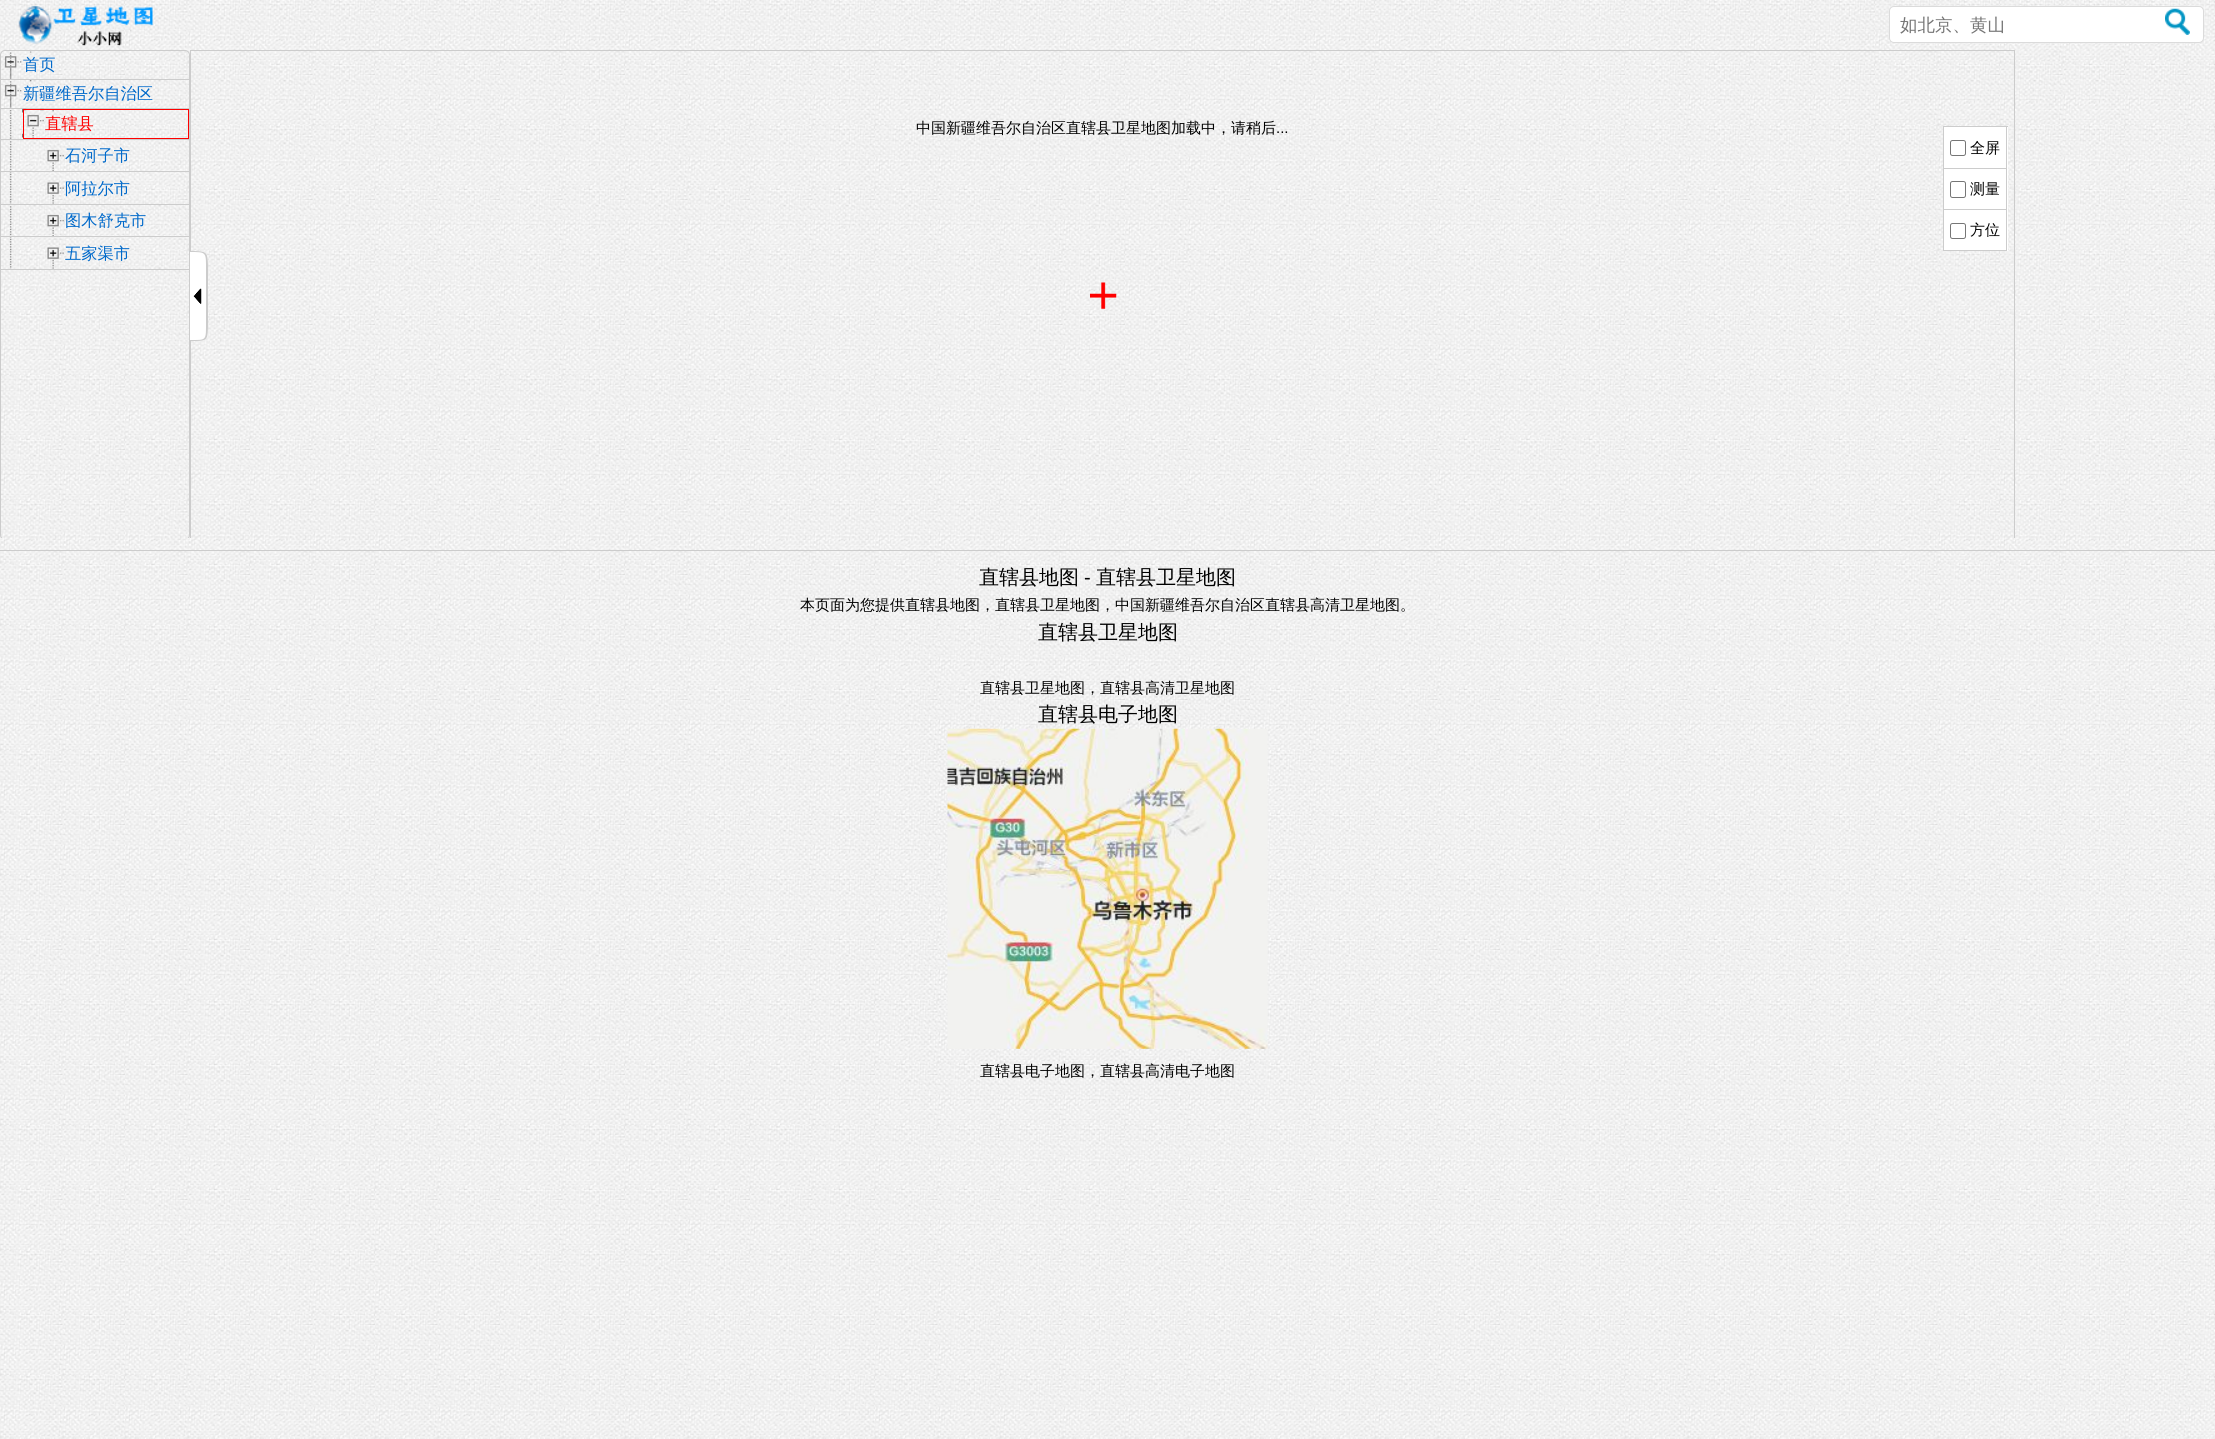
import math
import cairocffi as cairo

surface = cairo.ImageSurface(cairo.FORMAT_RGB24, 2215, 1439)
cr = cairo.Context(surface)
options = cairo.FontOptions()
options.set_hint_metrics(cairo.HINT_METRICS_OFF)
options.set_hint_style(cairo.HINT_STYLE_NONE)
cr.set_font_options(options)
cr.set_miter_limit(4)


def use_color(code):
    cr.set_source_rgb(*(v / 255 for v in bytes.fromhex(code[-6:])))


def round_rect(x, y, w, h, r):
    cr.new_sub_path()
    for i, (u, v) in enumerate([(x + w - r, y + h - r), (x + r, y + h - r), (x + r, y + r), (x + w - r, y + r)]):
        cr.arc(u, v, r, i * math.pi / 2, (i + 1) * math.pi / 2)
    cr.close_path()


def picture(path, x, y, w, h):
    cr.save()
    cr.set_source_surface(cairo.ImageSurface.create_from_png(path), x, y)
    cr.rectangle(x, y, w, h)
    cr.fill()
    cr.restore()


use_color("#ffffff")
cr.paint()
picture("img1.png", 0, 0, 2215, 1439)
picture("img2.png", 18, 6, 136, 40)
use_color("#ffffff")
round_rect(1889.5, 6.5, 314, 36, 4.5)
cr.fill_preserve()
use_color("#dbdbdb")
cr.set_line_width(1)
cr.stroke()
cr.select_font_face("WenQuanYi Zen Hei Medium")
cr.set_font_size(17.5)
use_color("#757575")
cr.move_to(1900, 31)
cr.show_text("如北京、黄山")
picture("img3.png", 2165, 8, 25, 27)
cr.save()
cr.rectangle(0, 50, 2215, 488)
cr.clip()
round_rect(0.5, 50.5, 189, 489, 4.5)
use_color("#cccccc")
cr.stroke()
cr.restore()
picture("img4.png", 9, 52, 3, 27)
use_color("#cccccc")
cr.rectangle(1, 79, 188, 1)
cr.fill()
picture("img5.png", 4, 51, 28, 27)
cr.set_font_size(16.25)
use_color("#0069ca")
cr.move_to(23, 70)
cr.show_text("首页")
picture("img6.png", 9, 81, 3, 27)
use_color("#cccccc")
cr.rectangle(1, 108, 188, 1)
cr.fill()
picture("img7.png", 4, 80, 28, 27)
use_color("#0069ca")
cr.move_to(23, 99)
cr.show_text("新疆维吾尔自治区")
picture("img8.png", 9, 109, 3, 30)
use_color("#cccccc")
cr.rectangle(1, 139, 188, 1)
cr.fill()
picture("img9.png", 22, 108, 32, 30)
cr.rectangle(23.5, 109.5, 165, 29)
use_color("#ff0000")
cr.stroke()
cr.move_to(45, 129)
cr.show_text("直辖县")
picture("img10.png", 9, 141, 3, 32)
use_color("#cccccc")
cr.rectangle(1, 171, 188, 1)
cr.fill()
picture("img11.png", 47, 149, 17, 22)
use_color("#0069ca")
cr.move_to(65, 161)
cr.show_text("石河子市")
picture("img12.png", 9, 173, 3, 31)
use_color("#cccccc")
cr.rectangle(1, 204, 188, 1)
cr.fill()
picture("img13.png", 47, 182, 17, 22)
use_color("#0069ca")
cr.move_to(65, 194)
cr.show_text("阿拉尔市")
picture("img14.png", 9, 206, 3, 32)
use_color("#cccccc")
cr.rectangle(1, 236, 188, 1)
cr.fill()
picture("img15.png", 47, 214, 17, 22)
use_color("#0069ca")
cr.move_to(65, 226)
cr.show_text("图木舒克市")
picture("img16.png", 9, 238, 3, 31)
use_color("#cccccc")
cr.rectangle(1, 269, 188, 1)
cr.fill()
picture("img17.png", 47, 247, 17, 22)
use_color("#0069ca")
cr.move_to(65, 259)
cr.show_text("五家渠市")
cr.save()
cr.rectangle(0, 50, 2215, 488)
cr.clip()
cr.rectangle(190.5, 50.5, 1824, 489)
use_color("#cccccc")
cr.stroke()
cr.restore()
cr.set_font_size(15)
use_color("#000000")
cr.move_to(916, 133)
cr.show_text("中国新疆维吾尔自治区直辖县卫星地图加载中，请稍后")
cr.select_font_face("Liberation Sans")
cr.move_to(1276, 133)
cr.show_text("...")
use_color("#ffffff")
cr.rectangle(1944, 127, 64, 124)
cr.fill()
use_color("#cccccc")
cr.rectangle(1943, 126, 65, 1)
cr.fill()
cr.rectangle(2006, 126, 1, 125)
cr.fill()
cr.rectangle(1943, 126, 1, 125)
cr.fill()
cr.rectangle(1944, 168, 62, 1)
cr.fill()
round_rect(1950.5, 140.5, 15, 15, 2)
use_color("#767676")
cr.stroke()
cr.select_font_face("WenQuanYi Zen Hei Medium")
use_color("#000000")
cr.move_to(1970, 153)
cr.show_text("全屏")
use_color("#cccccc")
cr.rectangle(1944, 209, 62, 1)
cr.fill()
round_rect(1950.5, 181.5, 15, 16, 2)
use_color("#767676")
cr.stroke()
use_color("#000000")
cr.move_to(1970, 194)
cr.show_text("测量")
use_color("#cccccc")
cr.rectangle(1944, 250, 62, 1)
cr.fill()
round_rect(1950.5, 223.5, 15, 15, 2)
use_color("#767676")
cr.stroke()
use_color("#000000")
cr.move_to(1970, 235)
cr.show_text("方位")
use_color("#ffffff")
cr.new_path()
cr.move_to(190, 251)
cr.line_to(200, 251)
cr.curve_to(204.5, 251, 208, 254.5, 208, 259)
cr.line_to(208, 333)
cr.curve_to(208, 337.5, 204.5, 341, 200, 341)
cr.line_to(190, 341)
cr.close_path()
cr.fill()
use_color("#cccccc")
cr.set_fill_rule(cairo.FILL_RULE_EVEN_ODD)
cr.new_path()
cr.move_to(190, 251)
cr.curve_to(208, 251, 208, 251, 208, 271)
cr.line_to(208, 321)
cr.curve_to(208, 342, 208, 341, 190, 341)
cr.close_path()
cr.move_to(190, 252)
cr.curve_to(207, 252, 206, 252, 206, 271)
cr.line_to(206, 321)
cr.curve_to(206, 341, 207, 340, 190, 340)
cr.close_path()
cr.fill()
picture("img18.png", 193, 288, 9, 16)
picture("img19.png", 1090, 282, 27, 27)
cr.rectangle(0, 550, 2215, 1)
cr.fill()
cr.set_font_size(20)
use_color("#000000")
cr.move_to(979, 584)
cr.show_text("直辖县地图")
cr.select_font_face("Liberation Sans")
cr.move_to(1084, 584)
cr.show_text("-")
cr.select_font_face("WenQuanYi Zen Hei Medium")
cr.move_to(1096, 584)
cr.show_text("直辖县卫星地图")
cr.set_font_size(15)
cr.move_to(800, 610)
cr.show_text("本页面为您提供直辖县地图，直辖县卫星地图，中国新疆维吾尔自治区直辖县高清卫星地图。")
cr.set_font_size(20)
cr.move_to(1038, 639)
cr.show_text("直辖县卫星地图")
cr.set_font_size(15)
cr.move_to(980, 693)
cr.show_text("直辖县卫星地图，直辖县高清卫星地图")
cr.set_font_size(20)
cr.move_to(1038, 721)
cr.show_text("直辖县电子地图")
picture("img20.png", 947, 728, 321, 321)
cr.set_font_size(15)
cr.move_to(980, 1076)
cr.show_text("直辖县电子地图，直辖县高清电子地图")
surface.write_to_png("result.png")
